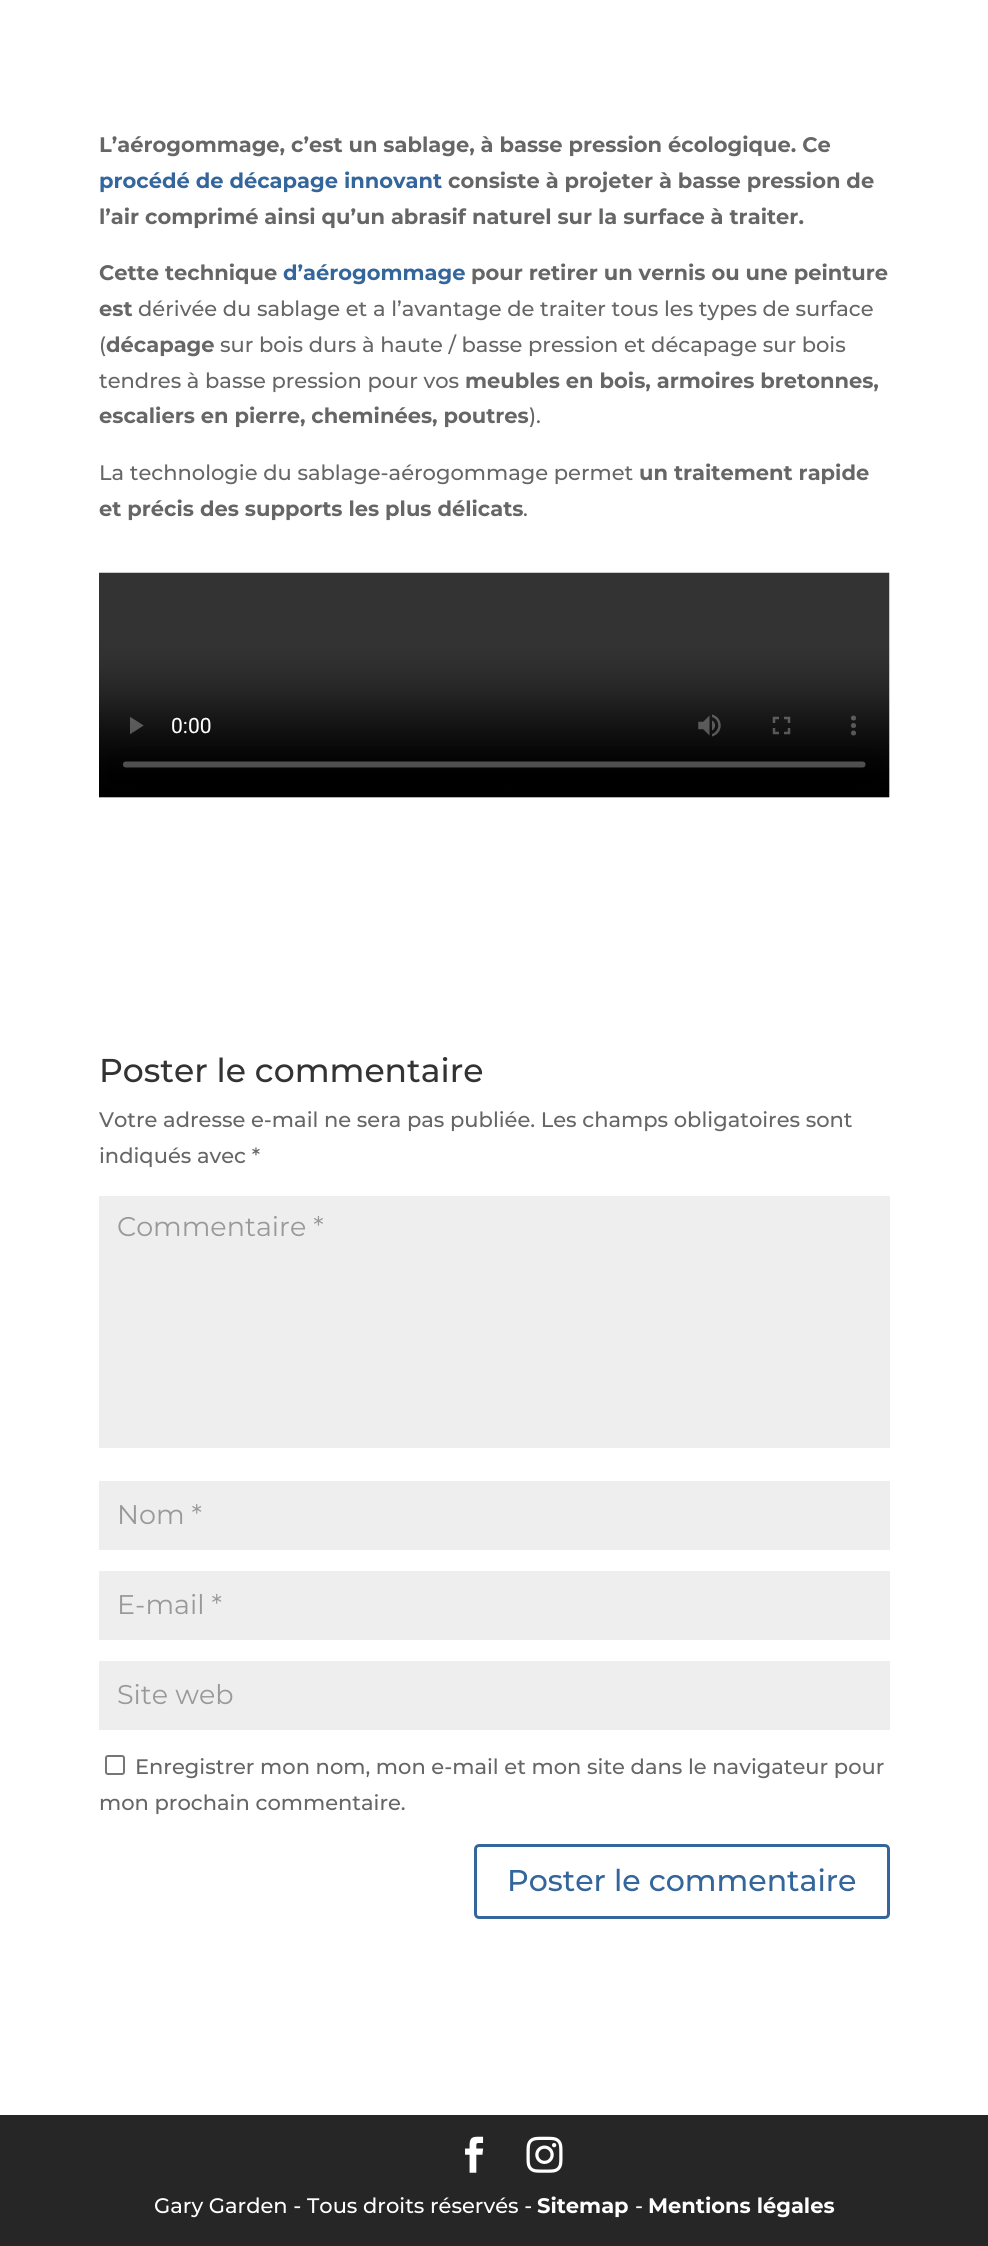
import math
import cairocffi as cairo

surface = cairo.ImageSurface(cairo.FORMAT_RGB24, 988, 2246)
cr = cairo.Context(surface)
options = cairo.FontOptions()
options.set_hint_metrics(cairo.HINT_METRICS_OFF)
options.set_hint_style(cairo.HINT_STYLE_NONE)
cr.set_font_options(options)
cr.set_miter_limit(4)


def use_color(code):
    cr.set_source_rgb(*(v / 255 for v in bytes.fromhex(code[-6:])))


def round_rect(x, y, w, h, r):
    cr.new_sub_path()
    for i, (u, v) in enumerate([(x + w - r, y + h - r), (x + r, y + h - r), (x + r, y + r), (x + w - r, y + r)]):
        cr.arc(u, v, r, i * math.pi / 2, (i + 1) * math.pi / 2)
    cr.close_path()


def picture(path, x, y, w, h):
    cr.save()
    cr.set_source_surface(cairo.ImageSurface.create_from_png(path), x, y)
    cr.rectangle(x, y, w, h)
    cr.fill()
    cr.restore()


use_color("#ffffff")
cr.paint()
cr.select_font_face("Montserrat", cairo.FONT_SLANT_NORMAL, cairo.FONT_WEIGHT_BOLD)
cr.set_font_size(21)
use_color("#666666")
cr.move_to(99, 152)
cr.show_text("L’aérogommage, c’est un sablage, à basse pression écologique. Ce")
use_color("#34669b")
cr.move_to(99, 188)
cr.show_text("procédé de décapage innovant")
use_color("#666666")
cr.move_to(448, 188)
cr.show_text("consiste à projeter à basse pression de")
cr.move_to(99, 224)
cr.show_text("l’air comprimé ainsi qu’un abrasif naturel sur la surface à traiter.")
cr.move_to(99, 280)
cr.show_text("Cette technique")
use_color("#34669b")
cr.move_to(283, 280)
cr.show_text("d’aérogommage")
use_color("#666666")
cr.move_to(471, 280)
cr.show_text("pour retirer un vernis ou une peinture")
cr.move_to(99, 316)
cr.show_text("est")
cr.select_font_face("Montserrat Medium")
cr.move_to(138, 316)
cr.show_text("dérivée du sablage et a l’avantage de traiter tous les types de surface")
cr.move_to(99, 352)
cr.show_text("(")
cr.select_font_face("Montserrat", cairo.FONT_SLANT_NORMAL, cairo.FONT_WEIGHT_BOLD)
cr.move_to(106, 352)
cr.show_text("décapage")
cr.select_font_face("Montserrat Medium")
cr.move_to(220, 352)
cr.show_text("sur bois durs à haute / basse pression et décapage sur bois")
cr.move_to(99, 388)
cr.show_text("tendres à basse pression pour vos")
cr.select_font_face("Montserrat", cairo.FONT_SLANT_NORMAL, cairo.FONT_WEIGHT_BOLD)
cr.move_to(465, 388)
cr.show_text("meubles en bois, armoires bretonnes,")
cr.move_to(99, 423)
cr.show_text("escaliers en pierre, cheminées, poutres")
cr.select_font_face("Montserrat Medium")
cr.move_to(529, 423)
cr.show_text(").")
cr.move_to(99, 480)
cr.show_text("La technologie du sablage-aérogommage permet")
cr.select_font_face("Montserrat", cairo.FONT_SLANT_NORMAL, cairo.FONT_WEIGHT_BOLD)
cr.move_to(639, 480)
cr.show_text("un traitement rapide")
cr.move_to(99, 516)
cr.show_text("et précis des supports les plus délicats")
cr.select_font_face("Montserrat Medium")
cr.move_to(523, 516)
cr.show_text(".")
picture("img1.png", 99, 572, 791, 226)
cr.set_font_size(33)
use_color("#333333")
cr.move_to(99, 1082)
cr.show_text("Poster le commentaire")
cr.set_font_size(21)
use_color("#666666")
cr.move_to(99, 1127)
cr.show_text("Votre adresse e-mail ne sera pas publiée. Les champs obligatoires sont")
cr.move_to(99, 1163)
cr.show_text("indiqués avec *")
use_color("#eeeeee")
cr.rectangle(99, 1196, 791, 252)
cr.fill()
cr.select_font_face("Montserrat")
cr.set_font_size(27)
use_color("#999999")
cr.move_to(117, 1236)
cr.show_text("Commentaire *")
use_color("#eeeeee")
cr.rectangle(99, 1481, 791, 69)
cr.fill()
use_color("#999999")
cr.move_to(117, 1524)
cr.show_text("Nom *")
use_color("#eeeeee")
cr.rectangle(99, 1571, 791, 69)
cr.fill()
use_color("#999999")
cr.move_to(117, 1614)
cr.show_text("E-mail *")
use_color("#eeeeee")
cr.rectangle(99, 1661, 791, 69)
cr.fill()
use_color("#999999")
cr.move_to(117, 1704)
cr.show_text("Site web")
round_rect(106, 1756, 18, 18, 2)
use_color("#767676")
cr.stroke()
cr.select_font_face("Montserrat Medium")
cr.set_font_size(21)
use_color("#666666")
cr.move_to(135, 1774)
cr.show_text("Enregistrer mon nom, mon e-mail et mon site dans le navigateur pour")
cr.move_to(99, 1810)
cr.show_text("mon prochain commentaire.")
round_rect(475.5, 1845.5, 413, 72, 3.5)
use_color("#34669b")
cr.set_line_width(3)
cr.stroke()
cr.set_font_size(30)
cr.move_to(507, 1891)
cr.show_text("Poster le commentaire")
use_color("#262626")
cr.rectangle(0, 2115, 988, 131)
cr.fill()
picture("img2.png", 465, 2136, 19, 37)
picture("img3.png", 526, 2136, 37, 37)
cr.set_font_size(21)
use_color("#ffffff")
cr.move_to(154, 2213)
cr.show_text("Gary Garden - Tous droits réservés -")
cr.select_font_face("Montserrat", cairo.FONT_SLANT_NORMAL, cairo.FONT_WEIGHT_BOLD)
cr.move_to(537, 2213)
cr.show_text("Sitemap")
cr.select_font_face("Montserrat Medium")
cr.move_to(635, 2213)
cr.show_text("-")
cr.select_font_face("Montserrat", cairo.FONT_SLANT_NORMAL, cairo.FONT_WEIGHT_BOLD)
cr.move_to(648, 2213)
cr.show_text("Mentions légales")
surface.write_to_png("result.png")
